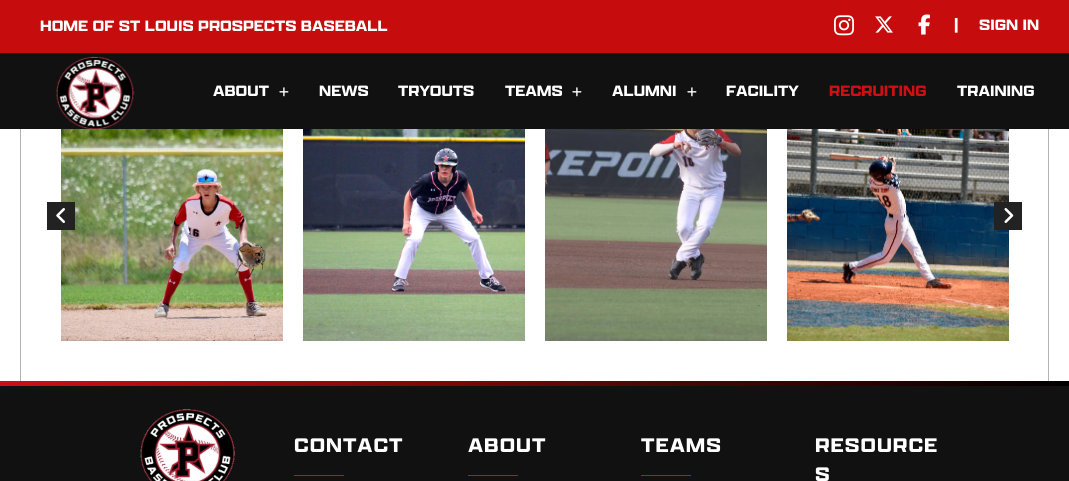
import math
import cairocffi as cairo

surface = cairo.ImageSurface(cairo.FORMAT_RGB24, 1069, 481)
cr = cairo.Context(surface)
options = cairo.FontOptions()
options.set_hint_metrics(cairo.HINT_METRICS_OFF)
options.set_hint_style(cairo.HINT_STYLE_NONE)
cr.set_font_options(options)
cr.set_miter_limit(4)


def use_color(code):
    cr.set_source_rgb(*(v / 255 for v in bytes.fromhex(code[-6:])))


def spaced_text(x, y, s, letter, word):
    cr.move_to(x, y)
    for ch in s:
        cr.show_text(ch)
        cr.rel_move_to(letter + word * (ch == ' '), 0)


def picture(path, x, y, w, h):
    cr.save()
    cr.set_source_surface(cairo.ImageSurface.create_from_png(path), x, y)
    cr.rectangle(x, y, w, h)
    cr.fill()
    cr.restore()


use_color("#ffffff")
cr.paint()
use_color("#c60c0c")
cr.rectangle(0, 0, 1069, 53)
cr.fill()
cr.select_font_face("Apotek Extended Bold", cairo.FONT_SLANT_NORMAL, cairo.FONT_WEIGHT_BOLD)
cr.set_font_size(16)
use_color("#ffffff")
cr.move_to(40, 31)
cr.show_text("HOME OF ST LOUIS PROSPECTS BASEBALL")
picture("img1.png", 834, 15, 20, 21)
picture("img2.png", 875, 16, 18, 17)
picture("img3.png", 918, 14, 12, 21)
cr.move_to(954, 30)
cr.show_text("|")
cr.move_to(979, 30)
cr.show_text("SIGN IN")
use_color("#111111")
cr.rectangle(0, 53, 1069, 76)
cr.fill()
picture("img6.png", 61, 129, 222, 212)
picture("img4.png", 56, 56, 79, 75)
use_color("#ffffff")
cr.move_to(213, 96)
cr.show_text("ABOUT")
picture("img5.png", 279, 87, 10, 10)
cr.move_to(319, 96)
cr.show_text("NEWS")
cr.move_to(398, 96)
cr.show_text("TRYOUTS")
cr.move_to(505, 96)
cr.show_text("TEAMS")
picture("img5.png", 572, 87, 10, 10)
cr.move_to(612, 96)
cr.show_text("ALUMNI")
picture("img5.png", 687, 87, 10, 10)
cr.move_to(726, 96)
cr.show_text("FACILITY")
use_color("#ce0f13")
cr.move_to(829, 96)
cr.show_text("RECRUITING")
use_color("#ffffff")
cr.move_to(957, 96)
cr.show_text("TRAINING")
use_color("#b3b3b3")
cr.rectangle(1048, 129, 1, 252)
cr.fill()
cr.rectangle(20, 129, 1, 252)
cr.fill()
picture("img7.png", 303, 129, 222, 212)
picture("img8.png", 545, 129, 222, 212)
picture("img9.png", 787, 129, 222, 212)
use_color("#222222")
cr.rectangle(47, 202, 28, 28)
cr.fill()
picture("img10.png", 56, 208, 9, 15)
cr.rectangle(994, 202, 28, 28)
cr.fill()
picture("img11.png", 1004, 208, 10, 15)
use_color("#111111")
cr.rectangle(0, 386, 1069, 95)
cr.fill()
gradient = cairo.LinearGradient(0, 381, 1069, 381)
gradient.add_color_stop_rgba(0, 0.808, 0.059, 0.075, 1)
gradient.add_color_stop_rgba(1, 0, 0, 0, 1)
cr.set_source(gradient)
cr.rectangle(0, 381, 1069, 5)
cr.fill()
picture("img12.png", 140, 409, 95, 72)
cr.set_font_size(21)
use_color("#ffffff")
spaced_text(294, 452, "CONTACT", 1, 0)
use_color("#ce0f13")
cr.rectangle(294, 475, 50, 1)
cr.fill()
use_color("#ffffff")
spaced_text(468, 452, "ABOUT", 1, 0)
use_color("#ce0f13")
cr.rectangle(468, 475, 50, 1)
cr.fill()
use_color("#ffffff")
spaced_text(641, 452, "TEAMS", 1, 0)
use_color("#ce0f13")
cr.rectangle(641, 475, 50, 1)
cr.fill()
use_color("#ffffff")
spaced_text(815, 452, "RESOURCE", 1, 0)
spaced_text(815, 481, "S", 1, 0)
surface.write_to_png("result.png")
